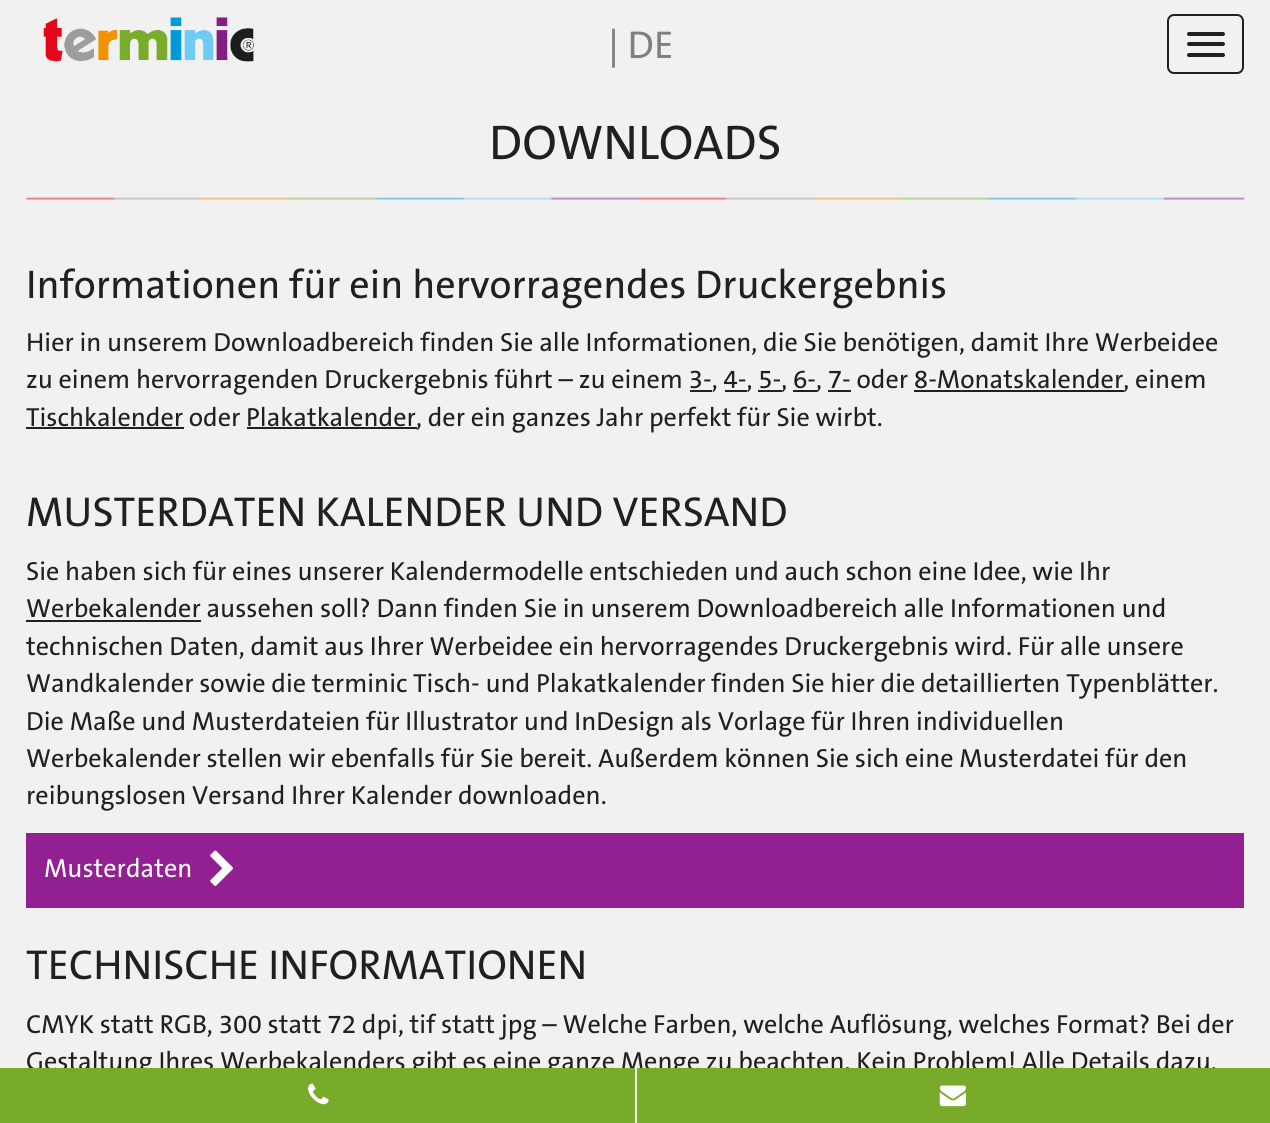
import math
import cairocffi as cairo

surface = cairo.ImageSurface(cairo.FORMAT_RGB24, 1270, 1123)
cr = cairo.Context(surface)
options = cairo.FontOptions()
options.set_hint_metrics(cairo.HINT_METRICS_OFF)
options.set_hint_style(cairo.HINT_STYLE_NONE)
cr.set_font_options(options)
cr.set_miter_limit(4)


def use_color(code):
    cr.set_source_rgb(*(v / 255 for v in bytes.fromhex(code[-6:])))


def round_rect(x, y, w, h, r):
    cr.new_sub_path()
    for i, (u, v) in enumerate([(x + w - r, y + h - r), (x + r, y + h - r), (x + r, y + r), (x + w - r, y + r)]):
        cr.arc(u, v, r, i * math.pi / 2, (i + 1) * math.pi / 2)
    cr.close_path()


def picture(path, x, y, w, h):
    cr.save()
    cr.set_source_surface(cairo.ImageSurface.create_from_png(path), x, y)
    cr.rectangle(x, y, w, h)
    cr.fill()
    cr.restore()


use_color("#f1f1f1")
cr.paint()
picture("img1.png", 43, 17, 211, 45)
cr.select_font_face("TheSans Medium")
cr.set_font_size(39)
use_color("#808080")
cr.move_to(608, 58)
cr.show_text("| DE")
round_rect(1168, 15, 75, 58, 6)
use_color("#202020")
cr.stroke()
round_rect(1187, 32, 38, 4, 2)
cr.fill()
round_rect(1187, 42, 38, 4, 2)
cr.fill()
round_rect(1187, 53, 38, 4, 2)
cr.fill()
cr.set_font_size(49)
cr.move_to(489, 159)
cr.show_text("DOWNLOADS")
picture("img2.png", 26, 197, 1219, 3)
cr.set_font_size(40.25)
cr.move_to(26, 298)
cr.show_text("Informationen für ein hervorragendes Druckergebnis")
cr.set_font_size(26.25)
cr.move_to(26, 351)
cr.show_text("Hier in unserem Downloadbereich finden Sie alle Informationen, die Sie benötigen, damit Ihre Werbeidee")
cr.move_to(26, 388)
cr.show_text("zu einem hervorragenden Druckergebnis führt – zu einem 3-, 4-, 5-, 6-, 7- oder 8-Monatskalender, einem")
cr.rectangle(690, 390, 22, 2)
cr.fill()
cr.rectangle(725, 390, 22, 2)
cr.fill()
cr.rectangle(758, 390, 24, 2)
cr.fill()
cr.rectangle(793, 390, 24, 2)
cr.fill()
cr.rectangle(828, 390, 23, 2)
cr.fill()
cr.rectangle(914, 390, 210, 2)
cr.fill()
cr.move_to(26, 426)
cr.show_text("Tischkalender oder Plakatkalender")
cr.rectangle(26, 427, 158, 2)
cr.fill()
cr.rectangle(247, 427, 170, 2)
cr.fill()
cr.move_to(416, 426)
cr.show_text(", der ein ganzes Jahr perfekt für Sie wirbt.")
cr.set_font_size(42)
cr.move_to(26, 526)
cr.show_text("MUSTERDATEN KALENDER UND VERSAND")
cr.set_font_size(26.25)
cr.move_to(26, 580)
cr.show_text("Sie haben sich für eines unserer Kalendermodelle entschieden und auch schon eine Idee, wie Ihr")
cr.move_to(26, 617)
cr.show_text("Werbekalender aussehen soll? Dann finden Sie in unserem Downloadbereich alle Informationen und")
cr.rectangle(26, 620, 175, 2)
cr.fill()
cr.move_to(26, 655)
cr.show_text("technischen Daten, damit aus Ihrer Werbeidee ein hervorragendes Druckergebnis wird. Für alle unsere")
cr.move_to(26, 692)
cr.show_text("Wandkalender sowie die terminic Tisch- und Plakatkalender finden Sie hier die detaillierten Typenblätter.")
cr.move_to(26, 730)
cr.show_text("Die Maße und Musterdateien für Illustrator und InDesign als Vorlage für Ihren individuellen")
cr.move_to(26, 767)
cr.show_text("Werbekalender stellen wir ebenfalls für Sie bereit. Außerdem können Sie sich eine Musterdatei für den")
cr.move_to(26, 804)
cr.show_text("reibungslosen Versand Ihrer Kalender downloaden.")
use_color("#932092")
cr.rectangle(26, 833, 1218, 75)
cr.fill()
use_color("#ffffff")
cr.move_to(44, 877)
cr.show_text("Musterdaten")
picture("img3.png", 210, 850, 23, 36)
cr.set_font_size(42)
use_color("#202020")
cr.move_to(26, 979)
cr.show_text("TECHNISCHE INFORMATIONEN")
cr.set_font_size(26.25)
cr.move_to(26, 1033)
cr.show_text("CMYK statt RGB, 300 statt 72 dpi, tif statt jpg – Welche Farben, welche Auflösung, welches Format? Bei der")
cr.move_to(26, 1070)
cr.show_text("Gestaltung Ihres Werbekalenders gibt es eine ganze Menge zu beachten. Kein Problem! Alle Details dazu,")
use_color("#79ab2b")
cr.rectangle(0, 1068, 635, 55)
cr.fill()
picture("img4.png", 308, 1083, 21, 22)
cr.rectangle(637, 1068, 633, 55)
cr.fill()
picture("img5.png", 939, 1085, 27, 22)
surface.write_to_png("result.png")
